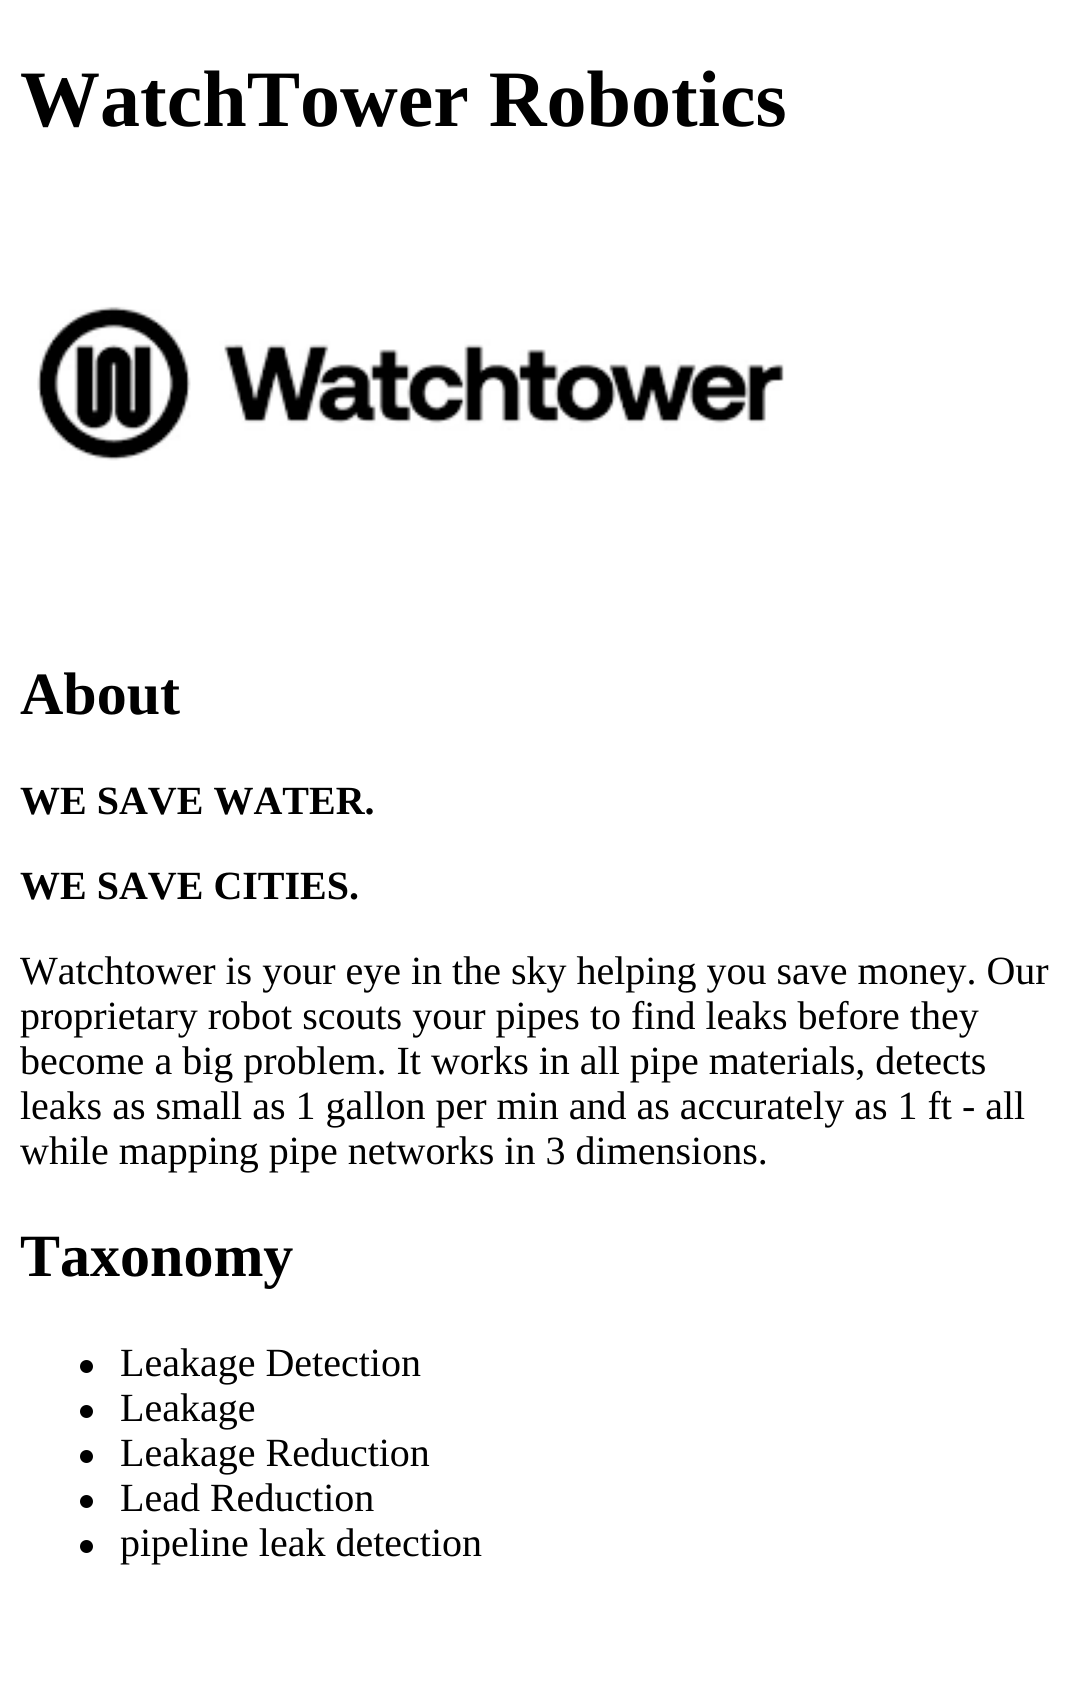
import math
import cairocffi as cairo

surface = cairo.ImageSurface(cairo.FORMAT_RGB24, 1090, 1691)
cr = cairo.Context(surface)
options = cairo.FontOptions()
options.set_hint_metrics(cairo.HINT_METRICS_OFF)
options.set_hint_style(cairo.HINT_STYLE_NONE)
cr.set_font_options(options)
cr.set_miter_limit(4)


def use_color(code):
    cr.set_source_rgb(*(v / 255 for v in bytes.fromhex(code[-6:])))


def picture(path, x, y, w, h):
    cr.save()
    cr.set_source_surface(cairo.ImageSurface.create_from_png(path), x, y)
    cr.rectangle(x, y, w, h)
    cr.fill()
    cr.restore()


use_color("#ffffff")
cr.paint()
cr.select_font_face("Liberation Serif", cairo.FONT_SLANT_NORMAL, cairo.FONT_WEIGHT_BOLD)
cr.set_font_size(80)
use_color("#000000")
cr.move_to(20, 126)
cr.show_text("WatchTower Robotics")
picture("img1.png", 37, 306, 747, 155)
cr.set_font_size(60)
cr.move_to(20, 714)
cr.show_text("About")
cr.set_font_size(40)
cr.move_to(20, 814)
cr.show_text("WE SAVE WATER.")
cr.move_to(20, 899)
cr.show_text("WE SAVE CITIES.")
cr.select_font_face("Liberation Serif")
cr.move_to(20, 984)
cr.show_text("Watchtower is your eye in the sky helping you save money. Our")
cr.move_to(20, 1029)
cr.show_text("proprietary robot scouts your pipes to find leaks before they")
cr.move_to(20, 1074)
cr.show_text("become a big problem. It works in all pipe materials, detects")
cr.move_to(20, 1119)
cr.show_text("leaks as small as 1 gallon per min and as accurately as 1 ft - all")
cr.move_to(20, 1164)
cr.show_text("while mapping pipe networks in 3 dimensions.")
cr.select_font_face("Liberation Serif", cairo.FONT_SLANT_NORMAL, cairo.FONT_WEIGHT_BOLD)
cr.set_font_size(60)
cr.move_to(20, 1276)
cr.show_text("Taxonomy")
cr.new_path()
cr.arc(86.5, 1366.5, 6.5, 0, 2 * math.pi)
cr.fill()
cr.select_font_face("Liberation Serif")
cr.set_font_size(40)
cr.move_to(120, 1376)
cr.show_text("Leakage Detection")
cr.new_path()
cr.arc(86.5, 1411.5, 6.5, 0, 2 * math.pi)
cr.fill()
cr.move_to(120, 1421)
cr.show_text("Leakage")
cr.new_path()
cr.arc(86.5, 1456.5, 6.5, 0, 2 * math.pi)
cr.fill()
cr.move_to(120, 1466)
cr.show_text("Leakage Reduction")
cr.new_path()
cr.arc(86.5, 1501.5, 6.5, 0, 2 * math.pi)
cr.fill()
cr.move_to(120, 1511)
cr.show_text("Lead Reduction")
cr.new_path()
cr.arc(86.5, 1546.5, 6.5, 0, 2 * math.pi)
cr.fill()
cr.move_to(120, 1556)
cr.show_text("pipeline leak detection")
surface.write_to_png("result.png")
